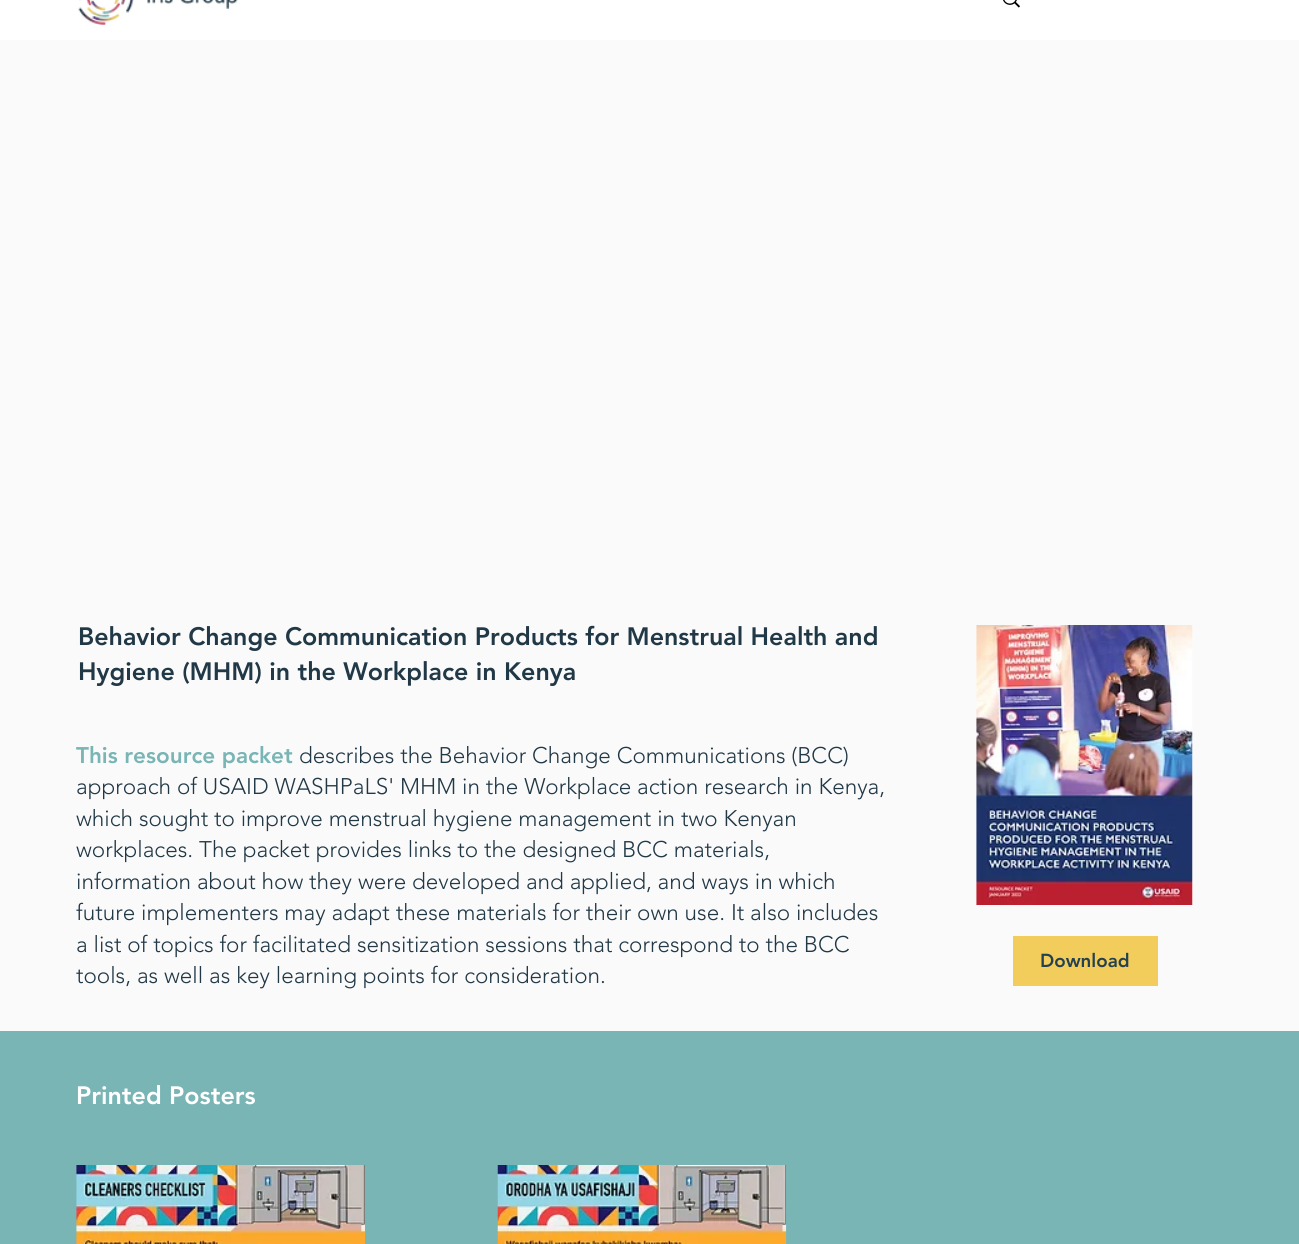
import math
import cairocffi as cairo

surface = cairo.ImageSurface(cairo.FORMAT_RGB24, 1299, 1244)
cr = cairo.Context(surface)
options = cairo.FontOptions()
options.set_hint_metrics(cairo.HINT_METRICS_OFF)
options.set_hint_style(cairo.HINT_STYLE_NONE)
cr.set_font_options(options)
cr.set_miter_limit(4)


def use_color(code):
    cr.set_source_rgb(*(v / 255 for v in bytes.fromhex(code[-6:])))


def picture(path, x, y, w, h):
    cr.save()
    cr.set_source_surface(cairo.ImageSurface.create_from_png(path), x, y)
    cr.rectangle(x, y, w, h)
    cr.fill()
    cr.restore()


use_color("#ffffff")
cr.paint()
picture("img1.png", 78, 0, 160, 25)
picture("img2.png", 1003, 0, 17, 8)
use_color("#fafafa")
cr.rectangle(0, 40, 1299, 991)
cr.fill()
cr.select_font_face("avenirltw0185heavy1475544 Black")
cr.set_font_size(25)
use_color("#213846")
cr.move_to(78, 645)
cr.show_text("Behavior Change Communication Products for Menstrual Health and")
cr.move_to(78, 680)
cr.show_text("Hygiene (MHM) in the Workplace in Kenya")
picture("img3.png", 976, 625, 217, 280)
cr.set_font_size(22.5)
use_color("#7ab5b6")
cr.move_to(76, 763)
cr.show_text("This resource packet")
cr.select_font_face("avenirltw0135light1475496 Light")
use_color("#213846")
cr.move_to(299, 763)
cr.show_text("describes the Behavior Change Communications (BCC)")
cr.move_to(76, 794)
cr.show_text("approach of USAID WASHPaLS' MHM in the Workplace action research in Kenya,")
cr.move_to(76, 826)
cr.show_text("which sought to improve menstrual hygiene management in two Kenyan")
cr.move_to(76, 857)
cr.show_text("workplaces. The packet provides links to the designed BCC materials,")
cr.move_to(76, 889)
cr.show_text("information about how they were developed and applied, and ways in which")
cr.move_to(76, 920)
cr.show_text("future implementers may adapt these materials for their own use. It also includes")
cr.move_to(76, 952)
cr.show_text("a list of topics for facilitated sensitization sessions that correspond to the BCC")
cr.move_to(76, 983)
cr.show_text("tools, as well as key learning points for consideration.")
use_color("#f3cd5b")
cr.rectangle(1013, 936, 145, 50)
cr.fill()
cr.select_font_face("avenirltw0185heavy1475544 Black")
cr.set_font_size(18.75)
use_color("#254151")
cr.move_to(1040, 967)
cr.show_text("Download")
use_color("#7ab5b6")
cr.rectangle(0, 1031, 1299, 213)
cr.fill()
cr.set_font_size(25)
use_color("#ffffff")
cr.move_to(76, 1104)
cr.show_text("Printed Posters")
picture("img4.png", 76, 1165, 289, 79)
picture("img5.png", 497, 1165, 290, 79)
surface.write_to_png("result.png")
